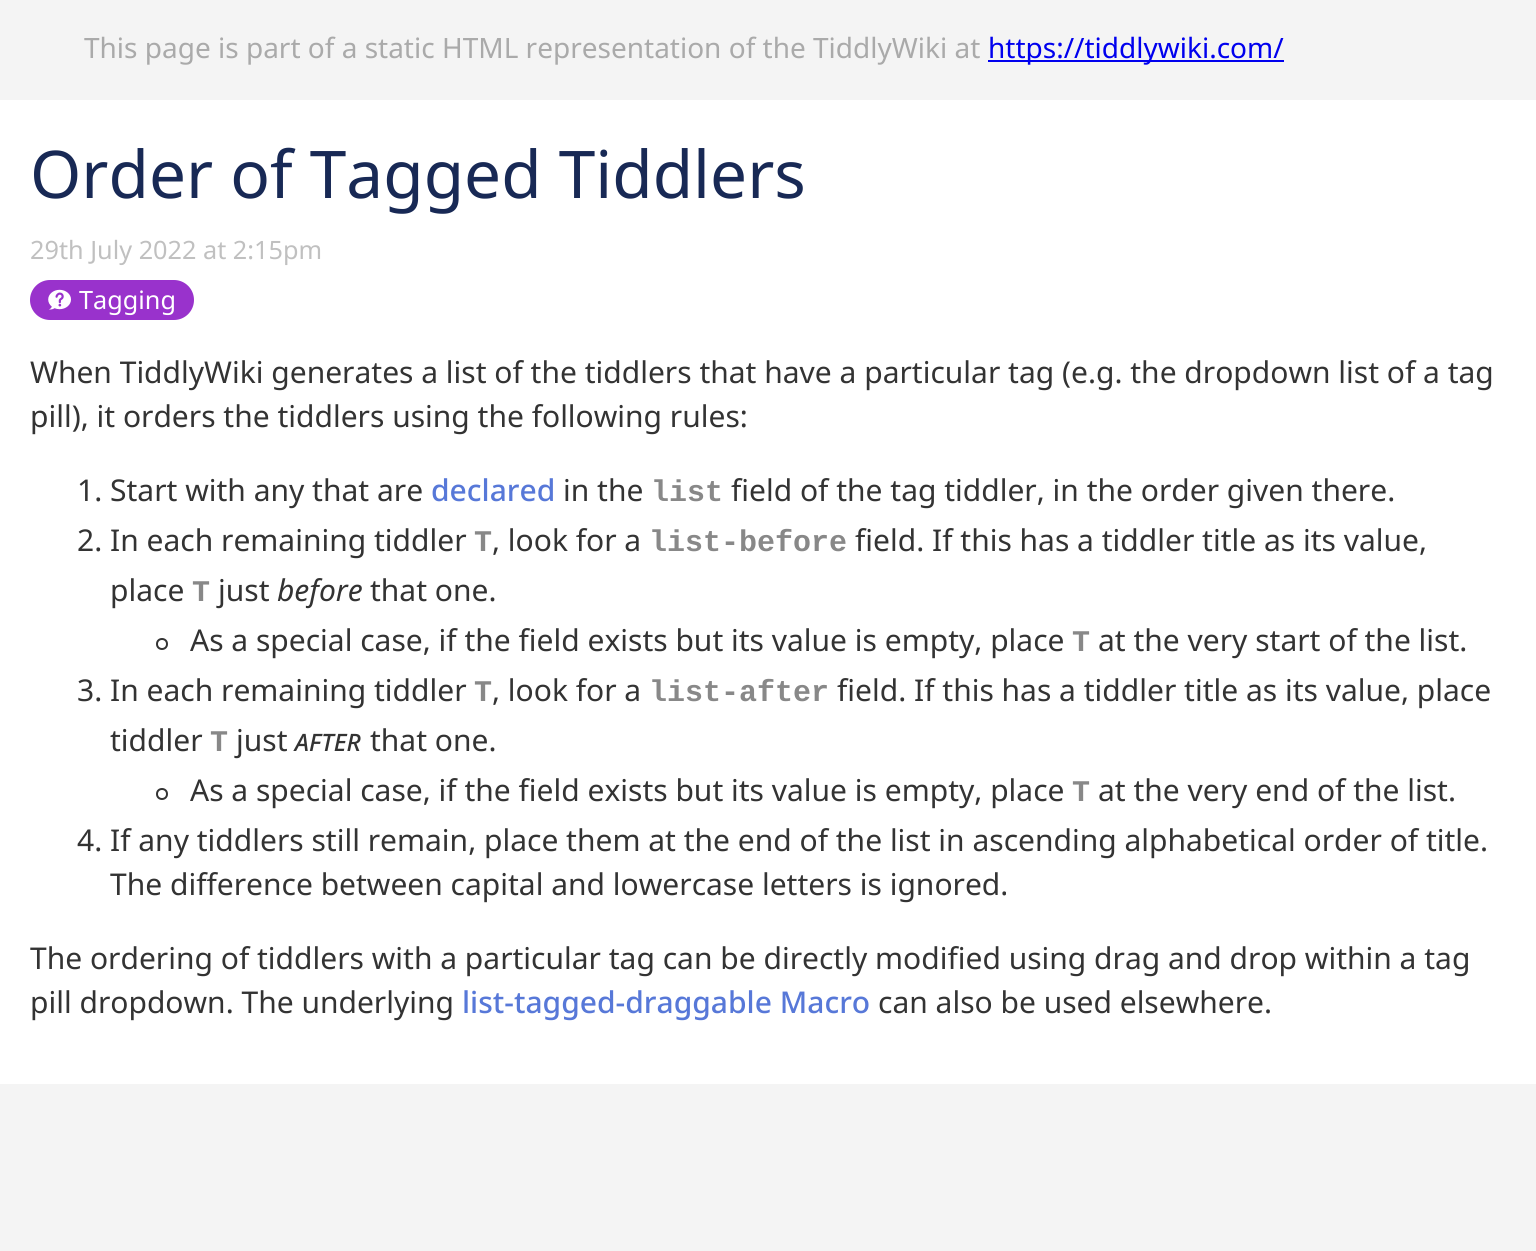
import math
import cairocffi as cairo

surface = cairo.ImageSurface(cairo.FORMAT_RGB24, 1536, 1251)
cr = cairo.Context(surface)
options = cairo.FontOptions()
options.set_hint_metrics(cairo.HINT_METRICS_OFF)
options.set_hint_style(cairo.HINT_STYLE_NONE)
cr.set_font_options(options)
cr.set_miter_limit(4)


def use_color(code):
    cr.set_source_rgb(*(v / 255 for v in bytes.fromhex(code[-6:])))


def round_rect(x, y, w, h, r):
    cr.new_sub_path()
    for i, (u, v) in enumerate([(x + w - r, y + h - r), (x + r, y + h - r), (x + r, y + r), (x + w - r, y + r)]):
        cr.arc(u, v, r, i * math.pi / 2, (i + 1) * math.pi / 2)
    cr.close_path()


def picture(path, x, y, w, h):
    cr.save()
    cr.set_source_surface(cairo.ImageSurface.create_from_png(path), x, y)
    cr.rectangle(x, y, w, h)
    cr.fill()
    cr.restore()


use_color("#f4f4f4")
cr.paint()
cr.select_font_face("Noto Sans")
cr.set_font_size(28)
use_color("#aaaaaa")
cr.move_to(84, 58)
cr.show_text("This page is part of a static HTML representation of the TiddlyWiki at")
use_color("#0000ee")
cr.rectangle(988, 60, 296, 2)
cr.fill()
cr.move_to(988, 58)
cr.show_text("https://tiddlywiki.com/")
use_color("#ffffff")
cr.rectangle(0, 100, 1536, 984)
cr.fill()
cr.set_font_size(65.75)
use_color("#182955")
cr.move_to(30, 198)
cr.show_text("Order of Tagged Tiddlers")
cr.set_font_size(25.25)
use_color("#c0c0c0")
cr.move_to(30, 259)
cr.show_text("29th July 2022 at 2:15pm")
use_color("#9932cc")
round_rect(30, 280, 164, 40, 20)
cr.fill()
picture("img1.png", 48, 289, 23, 21)
use_color("#ffffff")
cr.move_to(79, 309)
cr.show_text("Tagging")
cr.set_font_size(30)
use_color("#333333")
cr.move_to(30, 383)
cr.show_text("When TiddlyWiki generates a list of the tiddlers that have a particular tag (e.g. the dropdown list of a tag")
cr.move_to(30, 427)
cr.show_text("pill), it orders the tiddlers using the following rules:")
cr.move_to(77, 501)
cr.show_text("1. Start with any that are")
cr.select_font_face("Noto Sans Medium")
use_color("#5778d8")
cr.move_to(431, 501)
cr.show_text("declared")
cr.select_font_face("Noto Sans")
use_color("#333333")
cr.move_to(563, 501)
cr.show_text("in the")
cr.select_font_face("Liberation Mono", cairo.FONT_SLANT_NORMAL, cairo.FONT_WEIGHT_BOLD)
use_color("#888888")
cr.move_to(651, 501)
cr.show_text("list")
cr.select_font_face("Noto Sans")
use_color("#333333")
cr.move_to(731, 501)
cr.show_text("field of the tag tiddler, in the order given there.")
cr.move_to(77, 551)
cr.show_text("2. In each remaining tiddler")
cr.select_font_face("Liberation Mono", cairo.FONT_SLANT_NORMAL, cairo.FONT_WEIGHT_BOLD)
use_color("#888888")
cr.move_to(474, 551)
cr.show_text("T")
cr.select_font_face("Noto Sans")
use_color("#333333")
cr.move_to(492, 551)
cr.show_text(", look for a")
cr.select_font_face("Liberation Mono", cairo.FONT_SLANT_NORMAL, cairo.FONT_WEIGHT_BOLD)
use_color("#888888")
cr.move_to(649, 551)
cr.show_text("list-before")
cr.select_font_face("Noto Sans")
use_color("#333333")
cr.move_to(855, 551)
cr.show_text("field. If this has a tiddler title as its value,")
cr.move_to(110, 601)
cr.show_text("place")
cr.select_font_face("Liberation Mono", cairo.FONT_SLANT_NORMAL, cairo.FONT_WEIGHT_BOLD)
use_color("#888888")
cr.move_to(192, 601)
cr.show_text("T")
cr.select_font_face("Noto Sans")
use_color("#333333")
cr.move_to(218, 601)
cr.show_text("just")
cr.select_font_face("Noto Sans", cairo.FONT_SLANT_ITALIC)
cr.move_to(277, 601)
cr.show_text("before")
cr.select_font_face("Noto Sans")
cr.move_to(370, 601)
cr.show_text("that one.")
cr.new_path()
cr.arc(162, 644, 5, 0, 2 * math.pi)
cr.stroke()
cr.move_to(190, 651)
cr.show_text("As a special case, if the field exists but its value is empty, place")
cr.select_font_face("Liberation Mono", cairo.FONT_SLANT_NORMAL, cairo.FONT_WEIGHT_BOLD)
use_color("#888888")
cr.move_to(1072, 651)
cr.show_text("T")
cr.select_font_face("Noto Sans")
use_color("#333333")
cr.move_to(1098, 651)
cr.show_text("at the very start of the list.")
cr.move_to(77, 701)
cr.show_text("3. In each remaining tiddler")
cr.select_font_face("Liberation Mono", cairo.FONT_SLANT_NORMAL, cairo.FONT_WEIGHT_BOLD)
use_color("#888888")
cr.move_to(474, 701)
cr.show_text("T")
cr.select_font_face("Noto Sans")
use_color("#333333")
cr.move_to(492, 701)
cr.show_text(", look for a")
cr.select_font_face("Liberation Mono", cairo.FONT_SLANT_NORMAL, cairo.FONT_WEIGHT_BOLD)
use_color("#888888")
cr.move_to(649, 701)
cr.show_text("list-after")
cr.select_font_face("Noto Sans")
use_color("#333333")
cr.move_to(837, 701)
cr.show_text("field. If this has a tiddler title as its value, place")
cr.move_to(110, 751)
cr.show_text("tiddler")
cr.select_font_face("Liberation Mono", cairo.FONT_SLANT_NORMAL, cairo.FONT_WEIGHT_BOLD)
use_color("#888888")
cr.move_to(210, 751)
cr.show_text("T")
cr.select_font_face("Noto Sans")
use_color("#333333")
cr.move_to(236, 751)
cr.show_text("just")
cr.select_font_face("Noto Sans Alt", cairo.FONT_SLANT_ITALIC)
cr.move_to(295, 751)
cr.show_text("after")
cr.select_font_face("Noto Sans")
cr.move_to(370, 751)
cr.show_text("that one.")
cr.new_path()
cr.arc(162, 794, 5, 0, 2 * math.pi)
cr.stroke()
cr.move_to(190, 801)
cr.show_text("As a special case, if the field exists but its value is empty, place")
cr.select_font_face("Liberation Mono", cairo.FONT_SLANT_NORMAL, cairo.FONT_WEIGHT_BOLD)
use_color("#888888")
cr.move_to(1072, 801)
cr.show_text("T")
cr.select_font_face("Noto Sans")
use_color("#333333")
cr.move_to(1098, 801)
cr.show_text("at the very end of the list.")
cr.move_to(77, 851)
cr.show_text("4. If any tiddlers still remain, place them at the end of the list in ascending alphabetical order of title.")
cr.move_to(110, 895)
cr.show_text("The difference between capital and lowercase letters is ignored.")
cr.move_to(30, 969)
cr.show_text("The ordering of tiddlers with a particular tag can be directly modified using drag and drop within a tag")
cr.move_to(30, 1013)
cr.show_text("pill dropdown. The underlying")
cr.select_font_face("Noto Sans Medium")
use_color("#5778d8")
cr.move_to(462, 1013)
cr.show_text("list-tagged-draggable Macro")
cr.select_font_face("Noto Sans")
use_color("#333333")
cr.move_to(878, 1013)
cr.show_text("can also be used elsewhere.")
surface.write_to_png("result.png")
